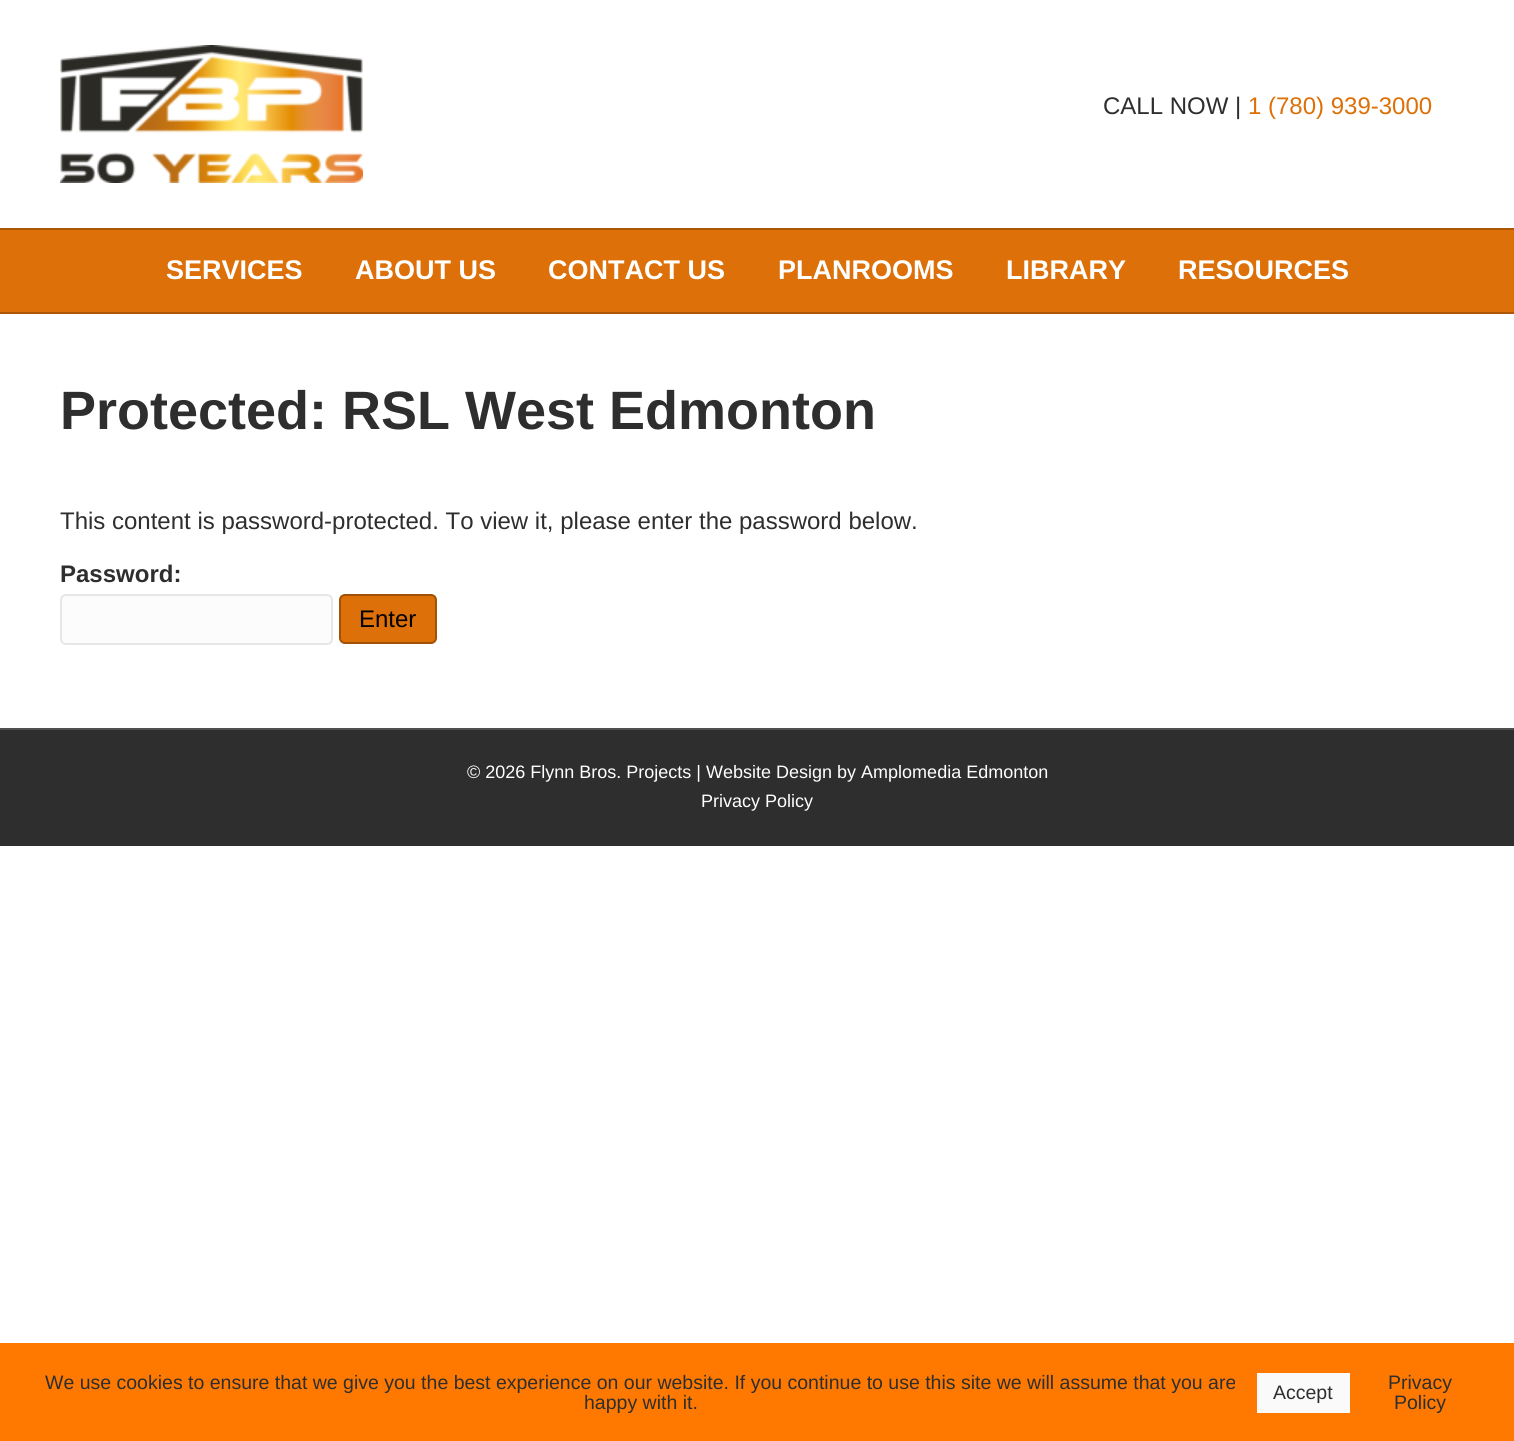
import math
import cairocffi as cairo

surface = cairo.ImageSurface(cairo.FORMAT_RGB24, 1514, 1441)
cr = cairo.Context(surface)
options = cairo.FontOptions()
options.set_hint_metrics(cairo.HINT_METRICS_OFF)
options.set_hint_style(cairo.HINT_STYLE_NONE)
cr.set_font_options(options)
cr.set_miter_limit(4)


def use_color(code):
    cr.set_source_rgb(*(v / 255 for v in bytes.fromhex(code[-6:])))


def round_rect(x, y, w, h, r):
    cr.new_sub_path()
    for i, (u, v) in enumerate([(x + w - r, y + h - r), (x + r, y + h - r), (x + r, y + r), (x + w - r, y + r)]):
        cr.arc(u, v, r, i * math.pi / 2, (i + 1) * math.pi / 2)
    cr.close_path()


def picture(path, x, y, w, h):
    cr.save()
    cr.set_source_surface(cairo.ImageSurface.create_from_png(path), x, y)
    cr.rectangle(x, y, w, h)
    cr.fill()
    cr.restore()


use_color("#ffffff")
cr.paint()
picture("img1.png", 60, 45, 303, 138)
cr.select_font_face("Liberation Sans")
cr.set_font_size(24)
use_color("#2f2e2e")
cr.move_to(1103, 114)
cr.show_text("CALL NOW |")
use_color("#dd7008")
cr.move_to(1248, 114)
cr.show_text("1 (780) 939-3000")
cr.rectangle(0, 230, 1514, 82)
cr.fill()
use_color("#ac5706")
cr.rectangle(0, 228, 1514, 2)
cr.fill()
cr.rectangle(0, 312, 1514, 2)
cr.fill()
cr.select_font_face("Liberation Sans", cairo.FONT_SLANT_NORMAL, cairo.FONT_WEIGHT_BOLD)
cr.set_font_size(27)
use_color("#ffffff")
cr.move_to(166, 279)
cr.show_text("SERVICES")
cr.move_to(355, 279)
cr.show_text("ABOUT US")
cr.move_to(548, 279)
cr.show_text("CONTACT US")
cr.move_to(778, 279)
cr.show_text("PLANROOMS")
cr.move_to(1006, 279)
cr.show_text("LIBRARY")
cr.move_to(1178, 279)
cr.show_text("RESOURCES")
cr.set_font_size(54)
use_color("#2f2e2e")
cr.move_to(60, 429)
cr.show_text("Protected: RSL West Edmonton")
cr.select_font_face("Liberation Sans")
cr.set_font_size(24)
cr.move_to(60, 529)
cr.show_text("This content is password-protected. To view it, please enter the password below.")
cr.select_font_face("Liberation Sans", cairo.FONT_SLANT_NORMAL, cairo.FONT_WEIGHT_BOLD)
cr.move_to(60, 582)
cr.show_text("Password:")
use_color("#fcfcfc")
round_rect(61, 595, 271, 49, 5)
cr.fill_preserve()
use_color("#e6e6e6")
cr.stroke()
use_color("#dd7008")
round_rect(340, 595, 96, 48, 5)
cr.fill_preserve()
use_color("#a25206")
cr.stroke()
cr.select_font_face("Liberation Sans")
use_color("#000000")
cr.move_to(359, 627)
cr.show_text("Enter")
use_color("#2f2e2e")
cr.rectangle(0, 730, 1514, 116)
cr.fill()
use_color("#514f4f")
cr.rectangle(0, 728, 1514, 2)
cr.fill()
cr.set_font_size(18)
use_color("#ffffff")
cr.move_to(467, 778)
cr.show_text("© 2026 Flynn Bros. Projects | Website Design by Amplomedia Edmonton")
cr.move_to(701, 807)
cr.show_text("Privacy Policy")
use_color("#ff7900")
cr.rectangle(0, 1343, 1514, 98)
cr.fill()
cr.set_font_size(19.5)
use_color("#2f2e2e")
cr.move_to(45, 1389)
cr.show_text("We use cookies to ensure that we give you the best experience on our website. If you continue to use this site we will assume that you are")
cr.move_to(584, 1409)
cr.show_text("happy with it.")
use_color("#fafafa")
cr.rectangle(1257, 1373, 93, 40)
cr.fill()
use_color("#2f2e2e")
cr.move_to(1273, 1399)
cr.show_text("Accept")
cr.move_to(1388, 1389)
cr.show_text("Privacy")
cr.move_to(1394, 1409)
cr.show_text("Policy")
surface.write_to_png("result.png")
